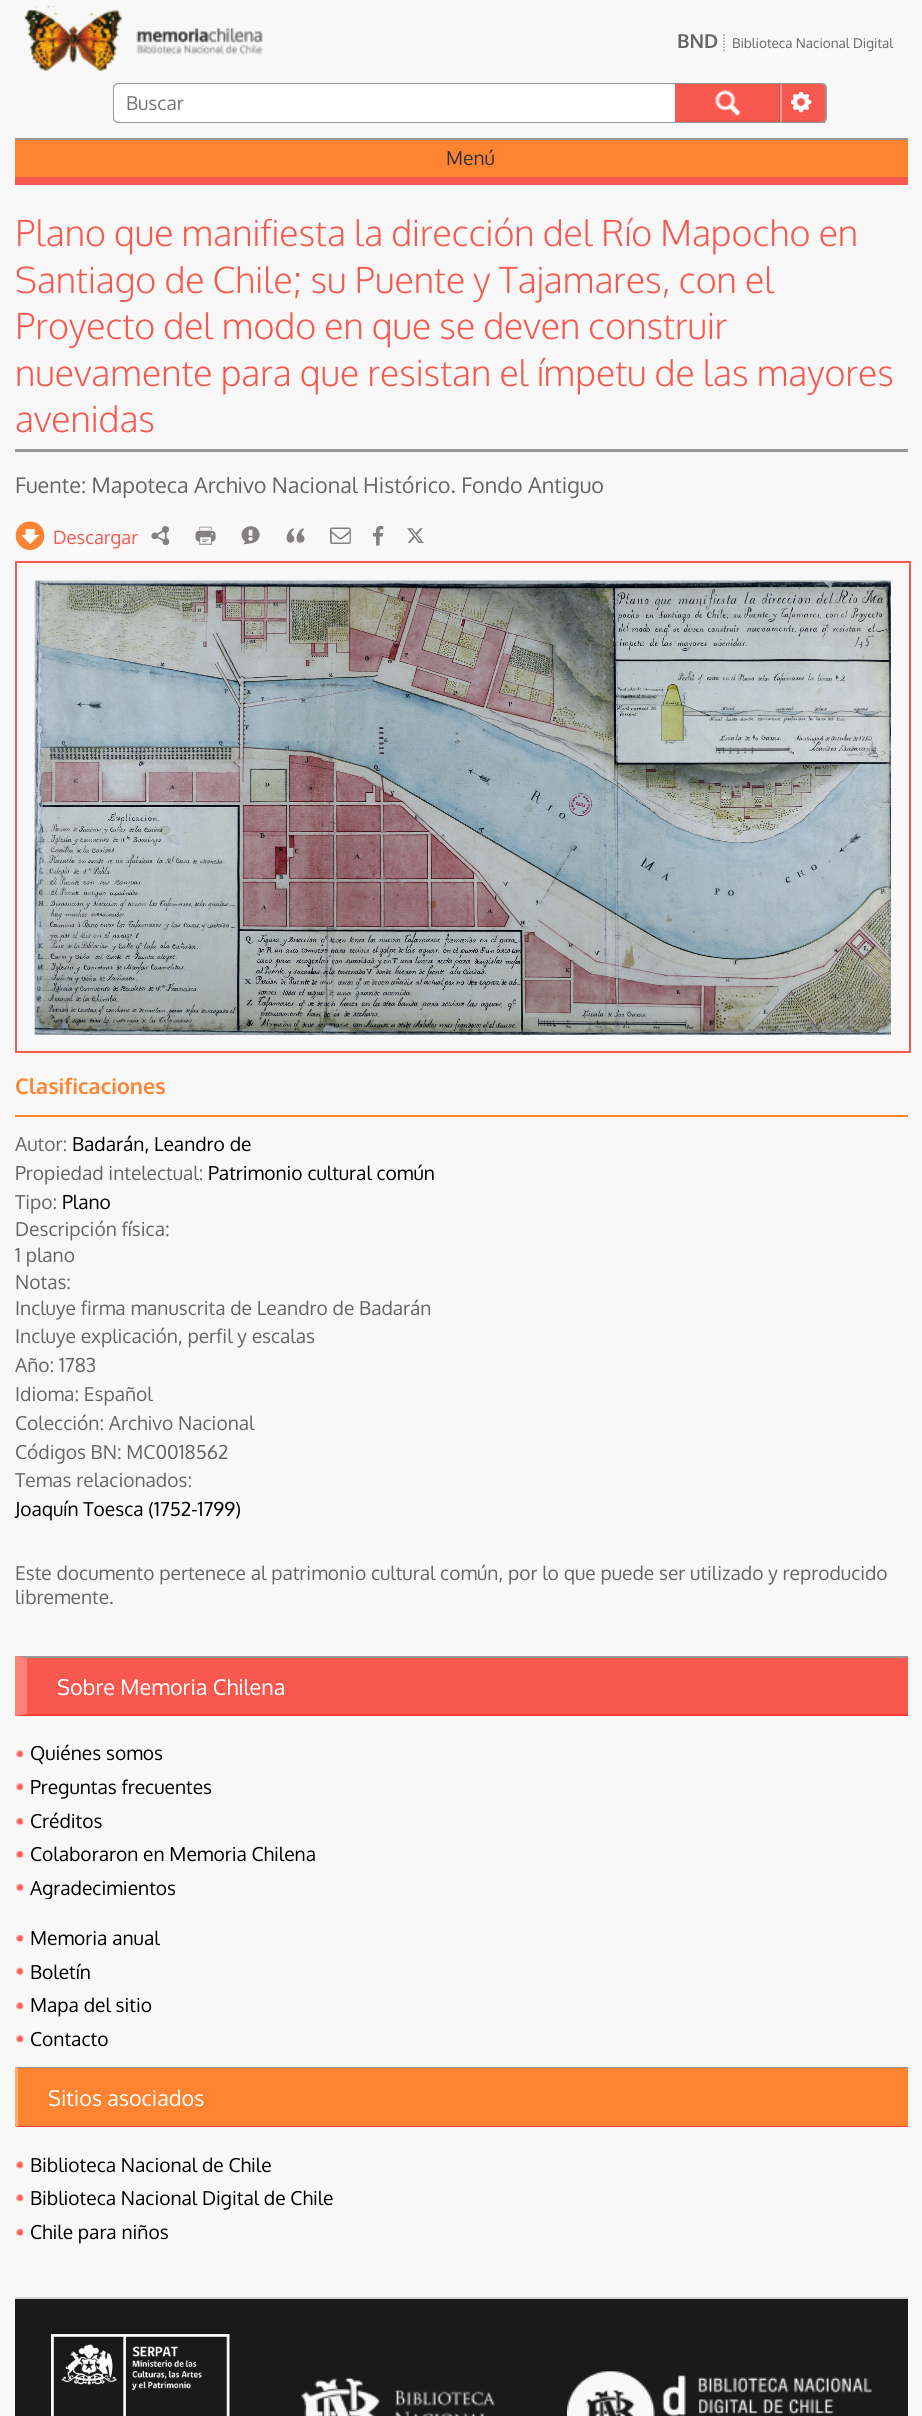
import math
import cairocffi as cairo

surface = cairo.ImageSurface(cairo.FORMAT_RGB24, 922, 2416)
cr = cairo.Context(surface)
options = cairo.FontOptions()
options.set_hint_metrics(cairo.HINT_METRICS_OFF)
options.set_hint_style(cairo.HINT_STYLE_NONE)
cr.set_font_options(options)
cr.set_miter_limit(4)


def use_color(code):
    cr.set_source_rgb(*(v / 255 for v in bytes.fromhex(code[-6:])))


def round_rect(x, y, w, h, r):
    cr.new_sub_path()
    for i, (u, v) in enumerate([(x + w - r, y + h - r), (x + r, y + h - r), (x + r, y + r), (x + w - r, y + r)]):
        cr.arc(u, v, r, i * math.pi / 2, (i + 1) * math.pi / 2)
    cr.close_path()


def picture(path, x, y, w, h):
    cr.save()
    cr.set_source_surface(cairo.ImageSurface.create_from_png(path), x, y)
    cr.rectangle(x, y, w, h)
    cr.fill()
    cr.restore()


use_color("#f8f8f8")
cr.paint()
picture("img1.png", 23, 5, 240, 66)
cr.select_font_face("Oxygen", cairo.FONT_SLANT_NORMAL, cairo.FONT_WEIGHT_BOLD)
cr.set_font_size(19.2)
use_color("#666666")
cr.move_to(677, 48)
cr.show_text("BND")
cr.new_path()
cr.move_to(724, 34.5)
cr.line_to(724, 51)
use_color("#999999")
cr.set_line_width(1.5)
cr.set_dash([1.5, 1.5])
cr.stroke()
cr.select_font_face("Oxygen")
cr.set_font_size(13.5)
use_color("#666666")
cr.move_to(732, 48)
cr.show_text("Biblioteca Nacional Digital")
use_color("#f7594f")
cr.rectangle(822, 85, 3, 38)
cr.fill()
round_rect(114, 84, 712, 38, 4)
use_color("#989898")
cr.set_line_width(2)
cr.set_dash([])
cr.stroke()
use_color("#ffffff")
cr.new_path()
cr.move_to(119, 84)
cr.line_to(675, 84)
cr.line_to(675, 122)
cr.line_to(119, 122)
cr.curve_to(116, 122, 114, 120, 114, 117)
cr.line_to(114, 89)
cr.curve_to(114, 86, 116, 84, 119, 84)
cr.close_path()
cr.fill()
cr.set_font_size(19.2)
use_color("#757575")
cr.move_to(126, 110)
cr.show_text("Buscar")
use_color("#f7594f")
cr.rectangle(675, 84, 105, 38)
cr.fill()
picture("img2.png", 715, 89, 26, 27)
cr.set_source_rgba(0, 0, 0, 0.15)
cr.new_path()
cr.move_to(779, 84)
cr.line_to(779, 122)
cr.line_to(819, 122)
cr.line_to(821, 121)
cr.line_to(780, 122)
cr.line_to(780, 84)
cr.close_path()
cr.fill()
use_color("#f7594f")
cr.new_path()
cr.move_to(780, 84)
cr.line_to(820, 84)
cr.curve_to(823, 84, 825, 86, 825, 89)
cr.line_to(825, 117)
cr.curve_to(825, 120, 823, 122, 820, 122)
cr.line_to(780, 122)
cr.close_path()
cr.fill()
use_color("#fa9b95")
cr.rectangle(780, 84, 2, 38)
cr.fill()
picture("img3.png", 791, 92, 21, 21)
use_color("#ff8431")
cr.rectangle(15, 140, 893, 37)
cr.fill()
use_color("#989898")
cr.rectangle(15, 138, 893, 2)
cr.fill()
use_color("#f7594f")
cr.rectangle(15, 177, 893, 8)
cr.fill()
use_color("#333333")
cr.move_to(446, 165)
cr.show_text("Menú")
use_color("#989898")
cr.rectangle(15, 449, 893, 3)
cr.fill()
cr.select_font_face("Oxygen Light")
cr.set_font_size(36)
use_color("#f7594f")
cr.move_to(15, 246)
cr.show_text("Plano que manifiesta la dirección del Río Mapocho en")
cr.move_to(15, 293)
cr.show_text("Santiago de Chile; su Puente y Tajamares, con el")
cr.move_to(15, 339)
cr.show_text("Proyecto del modo en que se deven construir")
cr.move_to(15, 386)
cr.show_text("nuevamente para que resistan el ímpetu de las mayores")
cr.move_to(15, 432)
cr.show_text("avenidas")
cr.select_font_face("Oxygen")
cr.set_font_size(21.6)
use_color("#666666")
cr.move_to(15, 493)
cr.show_text("Fuente: Mapoteca Archivo Nacional Histórico. Fondo Antiguo")
picture("img4.png", 15, 521, 30, 29)
cr.set_font_size(18.5)
use_color("#f7594f")
cr.move_to(53, 544)
cr.show_text("Descargar")
picture("img5.png", 151, 526, 19, 19)
picture("img6.png", 195, 526, 21, 19)
picture("img7.png", 241, 526, 19, 19)
picture("img8.png", 286, 528, 19, 15)
picture("img9.png", 330, 527, 21, 17)
picture("img10.png", 373, 526, 11, 20)
picture("img11.png", 407, 528, 17, 15)
cr.rectangle(16, 562, 894, 490)
cr.stroke()
picture("img12.png", 34, 580, 857, 455)
use_color("#ff8431")
cr.rectangle(15, 1115, 893, 2)
cr.fill()
cr.select_font_face("Oxygen", cairo.FONT_SLANT_NORMAL, cairo.FONT_WEIGHT_BOLD)
cr.set_font_size(21.6)
cr.move_to(15, 1094)
cr.show_text("Clasificaciones")
cr.select_font_face("Oxygen")
cr.set_font_size(19.2)
use_color("#666666")
cr.move_to(15, 1151)
cr.show_text("Autor:")
use_color("#000000")
cr.move_to(72, 1151)
cr.show_text("Badarán, Leandro de")
use_color("#666666")
cr.move_to(15, 1180)
cr.show_text("Propiedad intelectual:")
use_color("#000000")
cr.move_to(208, 1180)
cr.show_text("Patrimonio cultural común")
use_color("#666666")
cr.move_to(15, 1209)
cr.show_text("Tipo:")
use_color("#000000")
cr.move_to(62, 1209)
cr.show_text("Plano")
use_color("#666666")
cr.move_to(15, 1236)
cr.show_text("Descripción física:")
cr.move_to(15, 1262)
cr.show_text("1 plano")
cr.move_to(15, 1289)
cr.show_text("Notas:")
cr.move_to(15, 1315)
cr.show_text("Incluye firma manuscrita de Leandro de Badarán")
cr.move_to(15, 1343)
cr.show_text("Incluye explicación, perfil y escalas")
cr.move_to(15, 1372)
cr.show_text("Año: 1783")
cr.move_to(15, 1401)
cr.show_text("Idioma: Español")
cr.move_to(15, 1430)
cr.show_text("Colección: Archivo Nacional")
cr.move_to(15, 1459)
cr.show_text("Códigos BN: MC0018562")
cr.move_to(15, 1487)
cr.show_text("Temas relacionados:")
use_color("#000000")
cr.move_to(15, 1516)
cr.show_text("Joaquín Toesca (1752-1799)")
use_color("#666666")
cr.move_to(15, 1580)
cr.show_text("Este documento pertenece al patrimonio cultural común, por lo que puede ser utilizado y reproducido")
cr.move_to(15, 1604)
cr.show_text("libremente.")
use_color("#f7594f")
cr.rectangle(15, 1656, 893, 60)
cr.fill()
use_color("#989898")
cr.new_path()
cr.move_to(15, 1656)
cr.line_to(908, 1656)
cr.line_to(908, 1658)
cr.line_to(27, 1658)
cr.close_path()
cr.fill()
use_color("#f73934")
cr.new_path()
cr.move_to(908, 1716)
cr.line_to(15, 1716)
cr.line_to(27, 1714)
cr.line_to(908, 1714)
cr.close_path()
cr.fill()
use_color("#fe8179")
cr.new_path()
cr.move_to(15, 1716)
cr.line_to(15, 1656)
cr.line_to(27, 1658)
cr.line_to(27, 1714)
cr.close_path()
cr.fill()
cr.set_font_size(21.6)
use_color("#ffffff")
cr.move_to(57, 1695)
cr.show_text("Sobre Memoria Chilena")
picture("img13.png", 16, 1750, 8, 8)
cr.set_font_size(19.2)
use_color("#000000")
cr.move_to(30, 1760)
cr.show_text("Quiénes somos")
picture("img13.png", 16, 1783, 8, 8)
cr.move_to(30, 1794)
cr.show_text("Preguntas frecuentes")
picture("img14.png", 16, 1817, 8, 9)
cr.move_to(30, 1828)
cr.show_text("Créditos")
picture("img14.png", 16, 1850, 8, 9)
cr.move_to(30, 1861)
cr.show_text("Colaboraron en Memoria Chilena")
picture("img14.png", 16, 1883, 8, 9)
cr.save()
cr.rectangle(15, 1866, 893, 33)
cr.clip()
cr.move_to(30, 1895)
cr.show_text("Agradecimientos")
cr.restore()
picture("img14.png", 16, 1934, 8, 9)
cr.move_to(30, 1945)
cr.show_text("Memoria anual")
picture("img14.png", 16, 1967, 8, 9)
cr.move_to(30, 1979)
cr.show_text("Boletín")
picture("img13.png", 16, 2002, 8, 8)
cr.move_to(30, 2012)
cr.show_text("Mapa del sitio")
picture("img13.png", 16, 2035, 8, 8)
cr.move_to(30, 2046)
cr.show_text("Contacto")
use_color("#ff8431")
cr.rectangle(15, 2067, 893, 60)
cr.fill()
use_color("#989898")
cr.new_path()
cr.move_to(15, 2067)
cr.line_to(908, 2067)
cr.line_to(908, 2068)
cr.line_to(18, 2068)
cr.close_path()
cr.fill()
use_color("#f73934")
cr.new_path()
cr.move_to(908, 2127)
cr.line_to(15, 2127)
cr.line_to(18, 2126)
cr.line_to(908, 2126)
cr.close_path()
cr.fill()
use_color("#ffaa74")
cr.new_path()
cr.move_to(15, 2127)
cr.line_to(15, 2067)
cr.line_to(18, 2068)
cr.line_to(18, 2126)
cr.close_path()
cr.fill()
cr.set_font_size(21.6)
use_color("#ffffff")
cr.move_to(48, 2106)
cr.show_text("Sitios asociados")
picture("img13.png", 16, 2161, 8, 8)
cr.set_font_size(19.2)
use_color("#000000")
cr.move_to(30, 2172)
cr.show_text("Biblioteca Nacional de Chile")
picture("img13.png", 16, 2194, 8, 8)
cr.move_to(30, 2205)
cr.show_text("Biblioteca Nacional Digital de Chile")
picture("img14.png", 16, 2228, 8, 9)
cr.move_to(30, 2239)
cr.show_text("Chile para niños")
use_color("#1a1a1a")
cr.rectangle(15, 2299, 893, 117)
cr.fill()
use_color("#d7d7d7")
cr.rectangle(15, 2297, 893, 2)
cr.fill()
picture("img15.png", 51, 2334, 179, 82)
picture("img16.png", 301, 2377, 194, 39)
picture("img17.png", 567, 2371, 305, 45)
surface.write_to_png("result.png")
